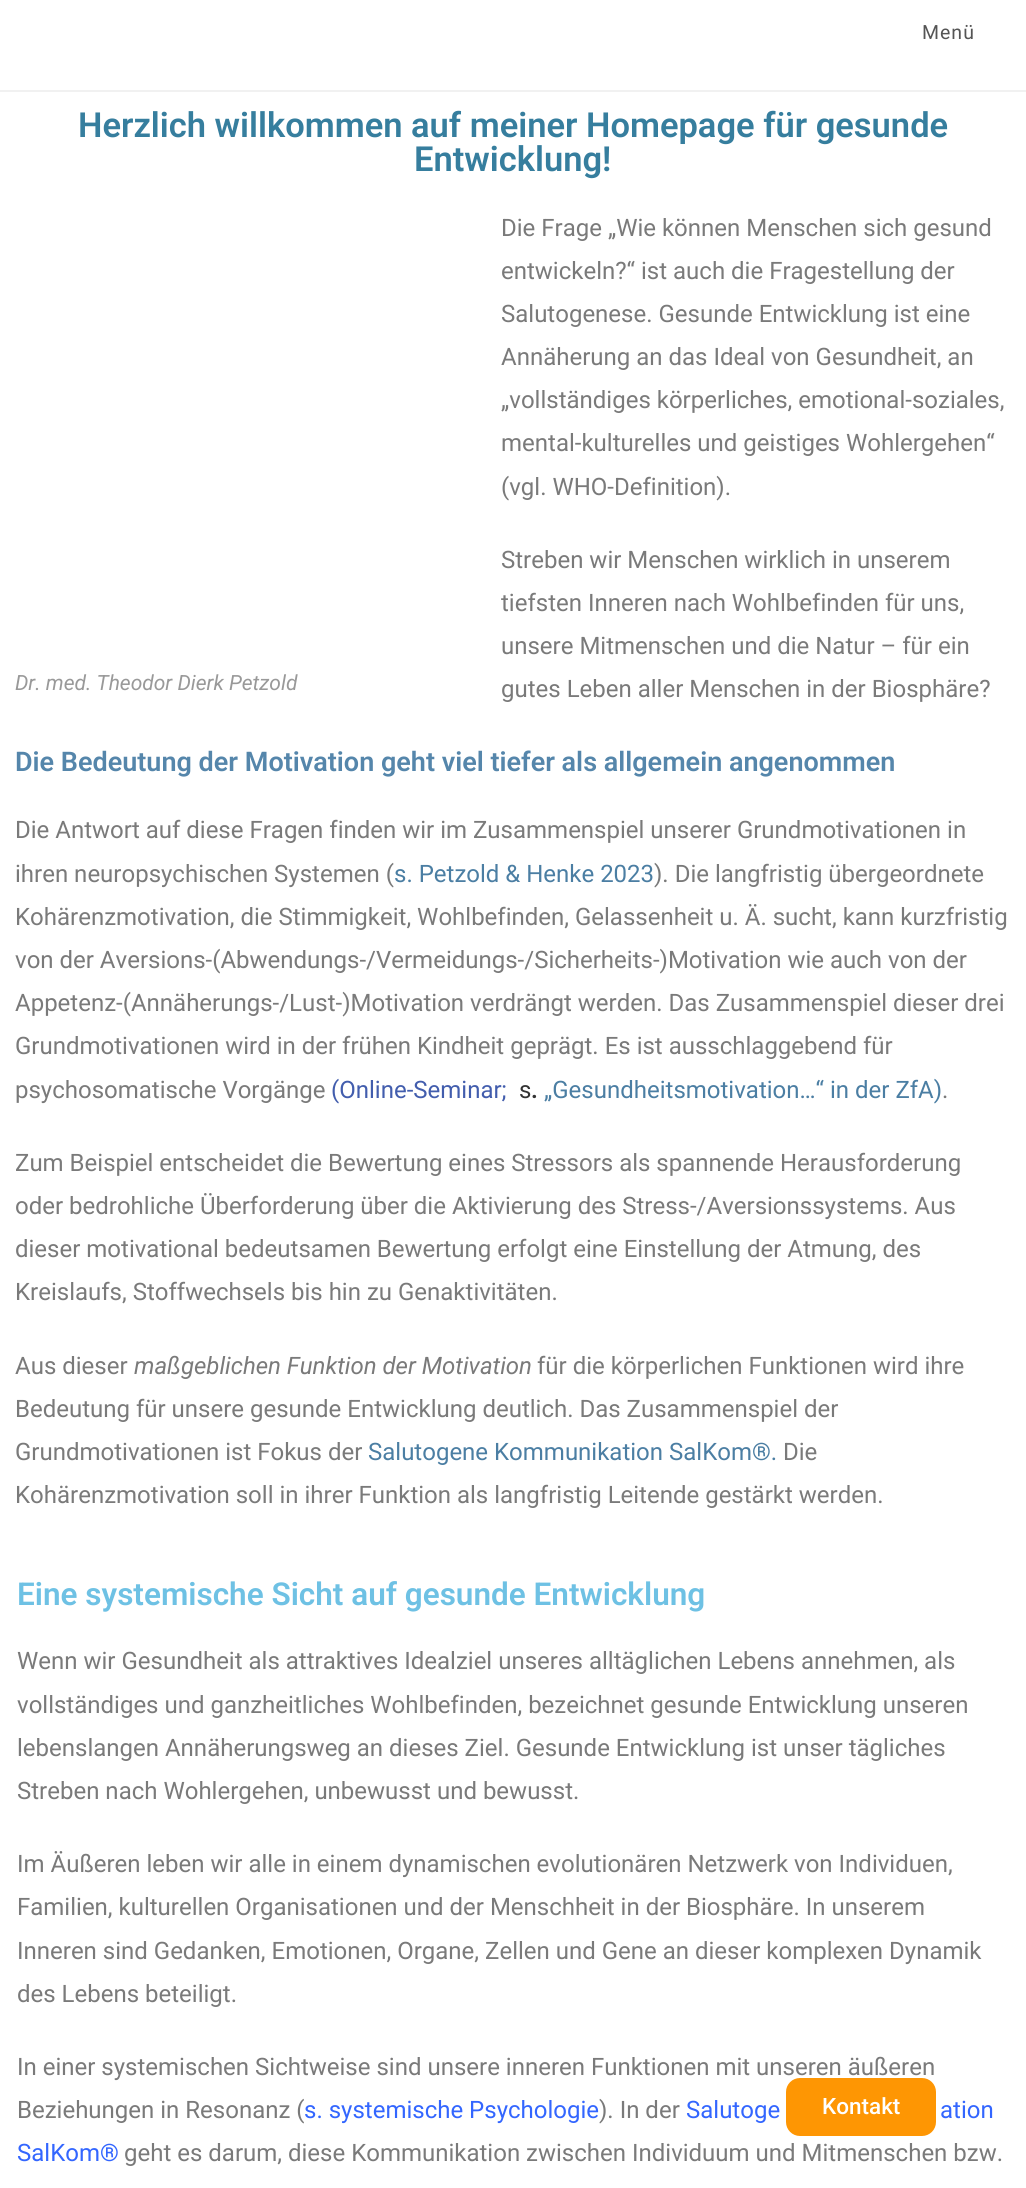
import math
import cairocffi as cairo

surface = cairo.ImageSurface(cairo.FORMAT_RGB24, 1026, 2188)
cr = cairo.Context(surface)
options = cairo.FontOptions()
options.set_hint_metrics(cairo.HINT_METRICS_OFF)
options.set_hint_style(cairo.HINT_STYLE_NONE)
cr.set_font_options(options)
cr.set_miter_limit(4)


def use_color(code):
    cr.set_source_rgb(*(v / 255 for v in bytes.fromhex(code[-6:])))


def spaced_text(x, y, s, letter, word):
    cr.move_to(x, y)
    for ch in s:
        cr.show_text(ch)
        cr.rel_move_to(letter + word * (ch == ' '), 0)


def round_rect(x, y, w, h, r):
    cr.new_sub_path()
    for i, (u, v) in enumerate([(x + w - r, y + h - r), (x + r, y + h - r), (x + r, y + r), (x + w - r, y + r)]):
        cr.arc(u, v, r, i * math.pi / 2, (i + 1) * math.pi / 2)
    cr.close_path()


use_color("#ffffff")
cr.paint()
use_color("#f1f1f1")
cr.rectangle(0, 90, 1026, 2)
cr.fill()
cr.select_font_face("Roboto")
cr.set_font_size(19.5)
use_color("#555555")
spaced_text(922, 39, "Menü", 1, 0)
cr.select_font_face("Roboto SemiBold")
cr.set_font_size(34.5)
use_color("#367e9e")
cr.move_to(78, 137)
cr.show_text("Herzlich willkommen auf meiner Homepage für gesunde")
cr.move_to(414, 171)
cr.show_text("Entwicklung!")
cr.select_font_face("Roboto")
cr.set_font_size(24)
use_color("#7a7a7a")
cr.move_to(501, 236)
cr.show_text("Die Frage „Wie können Menschen sich gesund")
cr.move_to(501, 279)
cr.show_text("entwickeln?“ ist auch die Fragestellung der")
cr.move_to(501, 322)
cr.show_text("Salutogenese. Gesunde Entwicklung ist eine")
cr.move_to(501, 365)
cr.show_text("Annäherung an das Ideal von Gesundheit, an")
cr.move_to(501, 408)
cr.show_text("„vollständiges körperliches, emotional-soziales,")
cr.move_to(501, 451)
cr.show_text("mental-kulturelles und geistiges Wohlergehen“")
cr.move_to(501, 495)
cr.show_text("(vgl. WHO-Definition).")
cr.select_font_face("Roboto", cairo.FONT_SLANT_ITALIC)
cr.set_font_size(21)
use_color("#999999")
cr.move_to(15, 690)
cr.show_text("Dr. med. Theodor Dierk Petzold")
cr.select_font_face("Roboto")
cr.set_font_size(24)
use_color("#7a7a7a")
cr.move_to(501, 568)
cr.show_text("Streben wir Menschen wirklich in unserem")
cr.move_to(501, 611)
cr.show_text("tiefsten Inneren nach Wohlbefinden für uns,")
cr.move_to(501, 654)
cr.show_text("unsere Mitmenschen und die Natur – für ein")
cr.move_to(501, 697)
cr.show_text("gutes Leben aller Menschen in der Biosphäre?")
cr.select_font_face("Roboto SemiBold")
cr.set_font_size(27)
use_color("#5586ab")
cr.move_to(15, 771)
cr.show_text("Die Bedeutung der Motivation geht viel tiefer als allgemein angenommen")
cr.select_font_face("Roboto")
cr.set_font_size(24)
use_color("#7a7a7a")
cr.move_to(15, 838)
cr.show_text("Die Antwort auf diese Fragen finden wir im Zusammenspiel unserer Grundmotivationen in")
cr.move_to(15, 882)
cr.show_text("ihren neuropsychischen Systemen (")
use_color("#4b7ea3")
cr.move_to(394, 882)
cr.show_text("s. Petzold & Henke 2023")
use_color("#7a7a7a")
cr.move_to(654, 882)
cr.show_text("). Die langfristig übergeordnete")
cr.move_to(15, 925)
cr.show_text("Kohärenzmotivation, die Stimmigkeit, Wohlbefinden, Gelassenheit u. Ä. sucht, kann kurzfristig")
cr.move_to(15, 968)
cr.show_text("von der Aversions-(Abwendungs-/Vermeidungs-/Sicherheits-)Motivation wie auch von der")
cr.move_to(15, 1011)
cr.show_text("Appetenz-(Annäherungs-/Lust-)Motivation verdrängt werden. Das Zusammenspiel dieser drei")
cr.move_to(15, 1054)
cr.show_text("Grundmotivationen wird in der frühen Kindheit geprägt. Es ist ausschlaggebend für")
cr.move_to(15, 1098)
cr.show_text("psychosomatische Vorgänge")
use_color("#425dad")
cr.move_to(331, 1098)
cr.show_text("(Online-Seminar;")
use_color("#333333")
cr.move_to(519, 1098)
cr.show_text("s")
cr.select_font_face("Roboto SemiBold")
cr.move_to(531, 1098)
cr.show_text(".")
cr.select_font_face("Roboto")
use_color("#4b7ea3")
cr.move_to(544, 1098)
cr.show_text("„Gesundheitsmotivation…“ in der ZfA)")
use_color("#7a7a7a")
cr.move_to(942, 1098)
cr.show_text(".")
cr.move_to(15, 1171)
cr.show_text("Zum Beispiel entscheidet die Bewertung eines Stressors als spannende Herausforderung")
cr.move_to(15, 1214)
cr.show_text("oder bedrohliche Überforderung über die Aktivierung des Stress-/Aversionssystems. Aus")
cr.move_to(15, 1257)
cr.show_text("dieser motivational bedeutsamen Bewertung erfolgt eine Einstellung der Atmung, des")
cr.move_to(15, 1300)
cr.show_text("Kreislaufs, Stoffwechsels bis hin zu Genaktivitäten.")
cr.move_to(15, 1374)
cr.show_text("Aus dieser")
cr.select_font_face("Roboto", cairo.FONT_SLANT_ITALIC)
cr.move_to(134, 1374)
cr.show_text("maßgeblichen Funktion der Motivation")
cr.select_font_face("Roboto")
cr.move_to(537, 1374)
cr.show_text("für die körperlichen Funktionen wird ihre")
cr.move_to(15, 1417)
cr.show_text("Bedeutung für unsere gesunde Entwicklung deutlich. Das Zusammenspiel der")
cr.move_to(15, 1460)
cr.show_text("Grundmotivationen ist Fokus der")
use_color("#4b7ea3")
cr.move_to(368, 1460)
cr.show_text("Salutogene Kommunikation SalKom®.")
use_color("#7a7a7a")
cr.move_to(783, 1460)
cr.show_text("Die")
cr.move_to(15, 1503)
cr.show_text("Kohärenzmotivation soll in ihrer Funktion als langfristig Leitende gestärkt werden.")
cr.select_font_face("Roboto SemiBold")
cr.set_font_size(31.5)
use_color("#6ec1e4")
cr.move_to(17, 1605)
cr.show_text("Eine systemische Sicht auf gesunde Entwicklung")
cr.select_font_face("Roboto")
cr.set_font_size(24)
use_color("#7a7a7a")
cr.move_to(17, 1669)
cr.show_text("Wenn wir Gesundheit als attraktives Idealziel unseres alltäglichen Lebens annehmen, als")
cr.move_to(17, 1713)
cr.show_text("vollständiges und ganzheitliches Wohlbefinden, bezeichnet gesunde Entwicklung unseren")
cr.move_to(17, 1756)
cr.show_text("lebenslangen Annäherungsweg an dieses Ziel. Gesunde Entwicklung ist unser tägliches")
cr.move_to(17, 1799)
cr.show_text("Streben nach Wohlergehen, unbewusst und bewusst.")
cr.move_to(17, 1872)
cr.show_text("Im Äußeren leben wir alle in einem dynamischen evolutionären Netzwerk von Individuen,")
cr.move_to(17, 1915)
cr.show_text("Familien, kulturellen Organisationen und der Menschheit in der Biosphäre. In unserem")
cr.move_to(17, 1959)
cr.show_text("Inneren sind Gedanken, Emotionen, Organe, Zellen und Gene an dieser komplexen Dynamik")
cr.move_to(17, 2002)
cr.show_text("des Lebens beteiligt.")
cr.move_to(17, 2075)
cr.show_text("In einer systemischen Sichtweise sind unsere inneren Funktionen mit unseren äußeren")
cr.move_to(17, 2118)
cr.show_text("Beziehungen in Resonanz (")
use_color("#3366ff")
cr.move_to(304, 2118)
cr.show_text("s. systemische Psychologie")
use_color("#7a7a7a")
cr.move_to(599, 2118)
cr.show_text("). In der")
use_color("#3366ff")
cr.move_to(686, 2118)
cr.show_text("Salutoge")
cr.move_to(940, 2118)
cr.show_text("ation")
cr.move_to(17, 2161)
cr.show_text("SalKom®")
use_color("#7a7a7a")
cr.move_to(124, 2161)
cr.show_text("geht es darum, diese Kommunikation zwischen Individuum und Mitmenschen bzw.")
use_color("#fe9603")
round_rect(786, 2078, 150, 58, 14)
cr.fill()
cr.select_font_face("Roboto Medium")
cr.set_font_size(22.5)
use_color("#ffffff")
cr.move_to(822, 2114)
cr.show_text("Kontakt")
surface.write_to_png("result.png")
